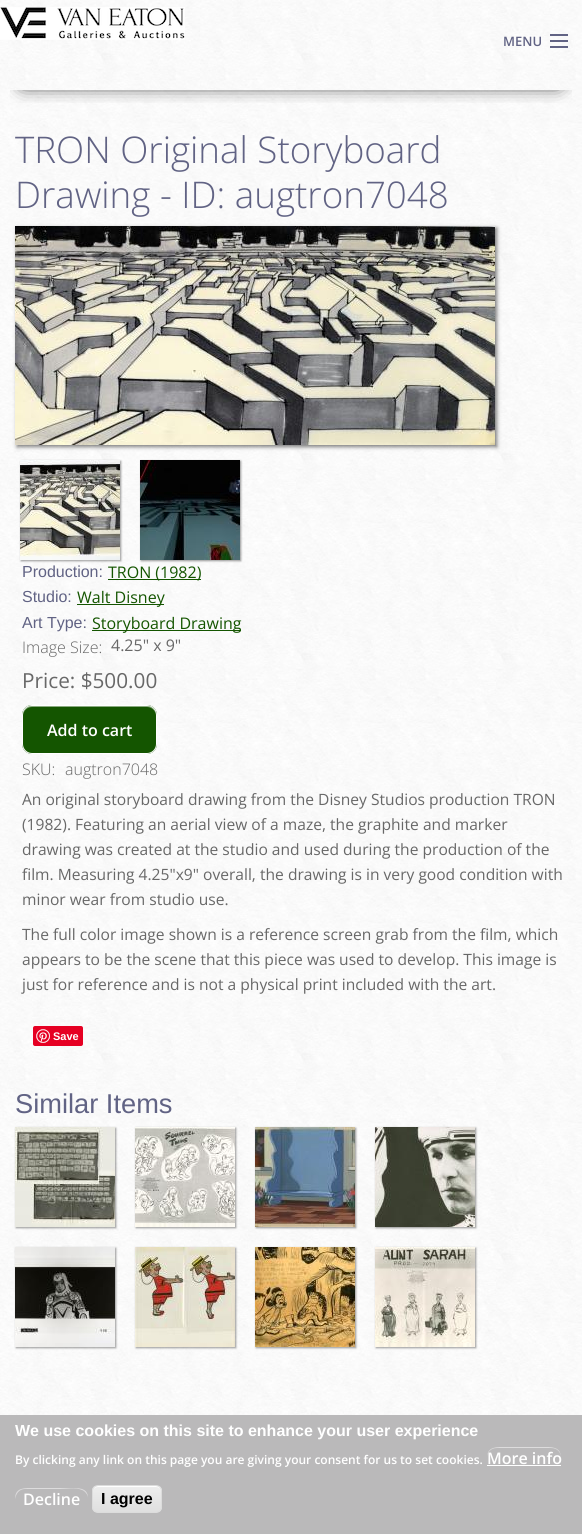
import math
import cairocffi as cairo

surface = cairo.ImageSurface(cairo.FORMAT_RGB24, 582, 1534)
cr = cairo.Context(surface)
options = cairo.FontOptions()
options.set_hint_metrics(cairo.HINT_METRICS_OFF)
options.set_hint_style(cairo.HINT_STYLE_NONE)
cr.set_font_options(options)
cr.set_miter_limit(4)


def use_color(code):
    cr.set_source_rgb(*(v / 255 for v in bytes.fromhex(code[-6:])))


def round_rect(x, y, w, h, r):
    cr.new_sub_path()
    for i, (u, v) in enumerate([(x + w - r, y + h - r), (x + r, y + h - r), (x + r, y + r), (x + w - r, y + r)]):
        cr.arc(u, v, r, i * math.pi / 2, (i + 1) * math.pi / 2)
    cr.close_path()


def shadow(x, y, w, h, r, blur, alpha):
    cr.push_group_with_content(cairo.CONTENT_ALPHA)
    cr.set_operator(cairo.OPERATOR_SOURCE)
    for i in range(15, -16, -2):
        e = blur * i / 6
        if min(w, h) + 2 * e > 0:
            cr.set_source_rgba(0, 0, 0, alpha * math.erfc((i - 1) / 8.5) / 2)
            round_rect(x - e, y - e, w + 2 * e, h + 2 * e, max(0, min(r + e + blur * .6, min(w, h) / 2 + e)))
            cr.fill()
    cr.mask(cr.pop_group())


def picture(path, x, y, w, h):
    cr.save()
    cr.set_source_surface(cairo.ImageSurface.create_from_png(path), x, y)
    cr.rectangle(x, y, w, h)
    cr.fill()
    cr.restore()


use_color("#ffffff")
cr.paint()
picture("img1.png", 0, 0, 582, 1415)
cr.save()
cr.rectangle(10, 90, 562, 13)
cr.clip()
use_color("#000000")
shadow(23, 40, 536, 44, 0, 9.5, 1)
cr.restore()
picture("img2.png", 0, 7, 185, 33)
use_color("#616384")
cr.rectangle(550, 46, 18, 2)
cr.fill()
cr.rectangle(550, 40, 18, 2)
cr.fill()
cr.rectangle(550, 34, 18, 2)
cr.fill()
cr.select_font_face("Open Sans SemiBold")
cr.set_font_size(13)
cr.move_to(503, 46)
cr.show_text("MENU")
cr.select_font_face("Open Sans Light")
cr.set_font_size(36.75)
cr.move_to(15, 163)
cr.show_text("TRON Original Storyboard")
cr.move_to(15, 208)
cr.show_text("Drawing - ID: augtron7048")
use_color("#000000")
shadow(17, 228, 480, 219, 0, 2, 0.5)
picture("img3.png", 15, 226, 480, 219)
shadow(21, 461, 100, 100, 0, 1, 0.4)
picture("img4.png", 20, 460, 100, 100)
shadow(141, 461, 100, 100, 0, 1, 0.4)
picture("img5.png", 140, 460, 100, 100)
cr.select_font_face("Liberation Sans")
cr.set_font_size(16)
use_color("#616384")
cr.move_to(22, 577)
cr.show_text("Production:")
use_color("#145500")
cr.rectangle(108, 579, 93, 1)
cr.fill()
cr.select_font_face("Open Sans")
cr.move_to(108, 578)
cr.show_text("TRON (1982)")
cr.select_font_face("Liberation Sans")
use_color("#616384")
cr.move_to(22, 602)
cr.show_text("Studio:")
use_color("#145500")
cr.rectangle(77, 604, 87, 1)
cr.fill()
cr.select_font_face("Open Sans")
cr.move_to(77, 603)
cr.show_text("Walt Disney")
cr.select_font_face("Liberation Sans")
use_color("#616384")
cr.move_to(22, 628)
cr.show_text("Art Type:")
use_color("#145500")
cr.rectangle(92, 630, 149, 1)
cr.fill()
cr.select_font_face("Open Sans")
cr.move_to(92, 629)
cr.show_text("Storyboard Drawing")
cr.select_font_face("Open Sans Light")
use_color("#686868")
cr.move_to(22, 653)
cr.show_text("Image Size:")
cr.select_font_face("Open Sans")
cr.move_to(111, 651)
cr.show_text("4.25\" x 9\"")
cr.set_font_size(20.75)
cr.move_to(22, 688)
cr.show_text("Price: $500.00")
use_color("#145500")
round_rect(22, 705, 135, 49, 10)
cr.fill()
use_color("#8aaa80")
cr.new_path()
cr.move_to(32, 707)
cr.line_to(147, 707)
cr.curve_to(152, 707, 156, 711, 156, 716)
cr.curve_to(156, 701, 137, 706, 128, 706)
cr.line_to(51, 706)
cr.curve_to(42, 706, 23, 701, 23, 716)
cr.curve_to(23, 711, 27, 707, 32, 707)
cr.close_path()
cr.fill()
round_rect(22.5, 705.5, 134, 48, 9.5)
use_color("#ffffff")
cr.set_line_width(1)
cr.stroke()
cr.select_font_face("Open Sans SemiBold")
cr.set_font_size(16)
cr.move_to(47, 736)
cr.show_text("Add to cart")
cr.select_font_face("Open Sans Light")
use_color("#686868")
cr.move_to(22, 775)
cr.show_text("SKU:")
cr.move_to(65, 775)
cr.show_text("augtron7048")
cr.select_font_face("Open Sans")
cr.set_font_size(15.6)
cr.move_to(22, 805)
cr.show_text("An original storyboard drawing from the Disney Studios production TRON")
cr.move_to(22, 830)
cr.show_text("(1982). Featuring an aerial view of a maze, the graphite and marker")
cr.move_to(22, 855)
cr.show_text("drawing was created at the studio and used during the production of the")
cr.move_to(22, 880)
cr.show_text("film. Measuring 4.25\"x9\" overall, the drawing is in very good condition with")
cr.move_to(22, 905)
cr.show_text("minor wear from studio use.")
cr.move_to(22, 940)
cr.show_text("The full color image shown is a reference screen grab from the film, which")
cr.move_to(22, 965)
cr.show_text("appears to be the scene that this piece was used to develop. This image is")
cr.move_to(22, 990)
cr.show_text("just for reference and is not a physical print included with the art.")
use_color("#e60023")
round_rect(33, 1026, 50, 20, 2)
cr.fill()
picture("img6.png", 36, 1029, 14, 14)
cr.select_font_face("Liberation Sans", cairo.FONT_SLANT_NORMAL, cairo.FONT_WEIGHT_BOLD)
cr.set_font_size(11)
use_color("#ffffff")
cr.move_to(53, 1040)
cr.show_text("Save")
cr.select_font_face("Liberation Sans")
cr.set_font_size(27.25)
use_color("#616384")
cr.move_to(15, 1113)
cr.show_text("Similar Items")
use_color("#000000")
shadow(16, 1128, 100, 100, 0, 1, 0.4)
picture("img7.png", 15, 1127, 100, 100)
shadow(136, 1128, 100, 100, 0, 1, 0.4)
picture("img8.png", 135, 1127, 100, 100)
shadow(256, 1128, 100, 100, 0, 1, 0.4)
picture("img9.png", 255, 1127, 100, 100)
shadow(376, 1128, 100, 100, 0, 1, 0.4)
picture("img10.png", 375, 1127, 100, 100)
shadow(16, 1248, 100, 100, 0, 1, 0.4)
picture("img11.png", 15, 1247, 100, 100)
shadow(136, 1248, 100, 100, 0, 1, 0.4)
picture("img12.png", 135, 1247, 100, 100)
shadow(256, 1248, 100, 100, 0, 1, 0.4)
picture("img13.png", 255, 1247, 100, 100)
shadow(376, 1248, 100, 100, 0, 1, 0.4)
picture("img14.png", 375, 1247, 100, 100)
use_color("#bab9ba")
cr.rectangle(0, 1415, 582, 119)
cr.fill()
cr.select_font_face("Liberation Sans", cairo.FONT_SLANT_NORMAL, cairo.FONT_WEIGHT_BOLD)
cr.set_font_size(16)
use_color("#ffffff")
cr.move_to(15, 1436)
cr.show_text("We use cookies on this site to enhance your user experience")
cr.select_font_face("Open Sans SemiBold")
cr.set_font_size(12)
cr.move_to(15, 1464)
cr.show_text("By clicking any link on this page you are giving your consent for us to set cookies.")
use_color("#dddcdd")
cr.new_path()
cr.move_to(497, 1448)
cr.line_to(551, 1448)
cr.curve_to(557, 1448, 561, 1452, 561, 1458)
cr.curve_to(561, 1446, 551, 1447, 542, 1447)
cr.line_to(506, 1447)
cr.curve_to(497, 1447, 487, 1446, 487, 1458)
cr.curve_to(487, 1452, 491, 1448, 497, 1448)
cr.close_path()
cr.fill()
cr.set_font_size(16)
use_color("#ffffff")
cr.move_to(487, 1464)
cr.show_text("More info")
cr.rectangle(487, 1465, 74, 1)
cr.fill()
use_color("#dddcdd")
cr.new_path()
cr.move_to(25, 1489)
cr.line_to(60, 1489)
cr.curve_to(67, 1489, 75, 1487, 82, 1490)
cr.curve_to(85, 1491, 88, 1495, 88, 1498)
cr.curve_to(88, 1487, 77, 1488, 69, 1488)
cr.line_to(34, 1488)
cr.curve_to(25, 1488, 15, 1487, 15, 1499)
cr.curve_to(16, 1494, 19, 1489, 25, 1489)
cr.close_path()
cr.fill()
use_color("#ffffff")
cr.move_to(23, 1505)
cr.show_text("Decline")
cr.save()
round_rect(92, 1485, 70, 28, 6)
cr.clip()
gradient = cairo.LinearGradient(127, 1486, 127, 1512)
gradient.add_color_stop_rgba(0.05, 0.929, 0.929, 0.929, 1)
gradient.add_color_stop_rgba(1, 0.875, 0.875, 0.875, 1)
cr.set_source(gradient)
cr.rectangle(92, 1486, 70, 26)
cr.fill()
cr.restore()
cr.new_path()
cr.move_to(98, 1487)
cr.line_to(156, 1487)
cr.curve_to(159, 1487, 161, 1489, 161, 1492)
cr.curve_to(161, 1484, 152, 1486, 146, 1486)
cr.line_to(108, 1486)
cr.curve_to(102, 1486, 93, 1484, 93, 1492)
cr.curve_to(93, 1489, 95, 1487, 98, 1487)
cr.close_path()
cr.fill()
round_rect(92.5, 1485.5, 69, 27, 5.5)
use_color("#dcdcdc")
cr.stroke()
cr.select_font_face("Liberation Sans", cairo.FONT_SLANT_NORMAL, cairo.FONT_WEIGHT_BOLD)
use_color("#000000")
cr.move_to(101, 1504)
cr.show_text("I agree")
surface.write_to_png("result.png")
